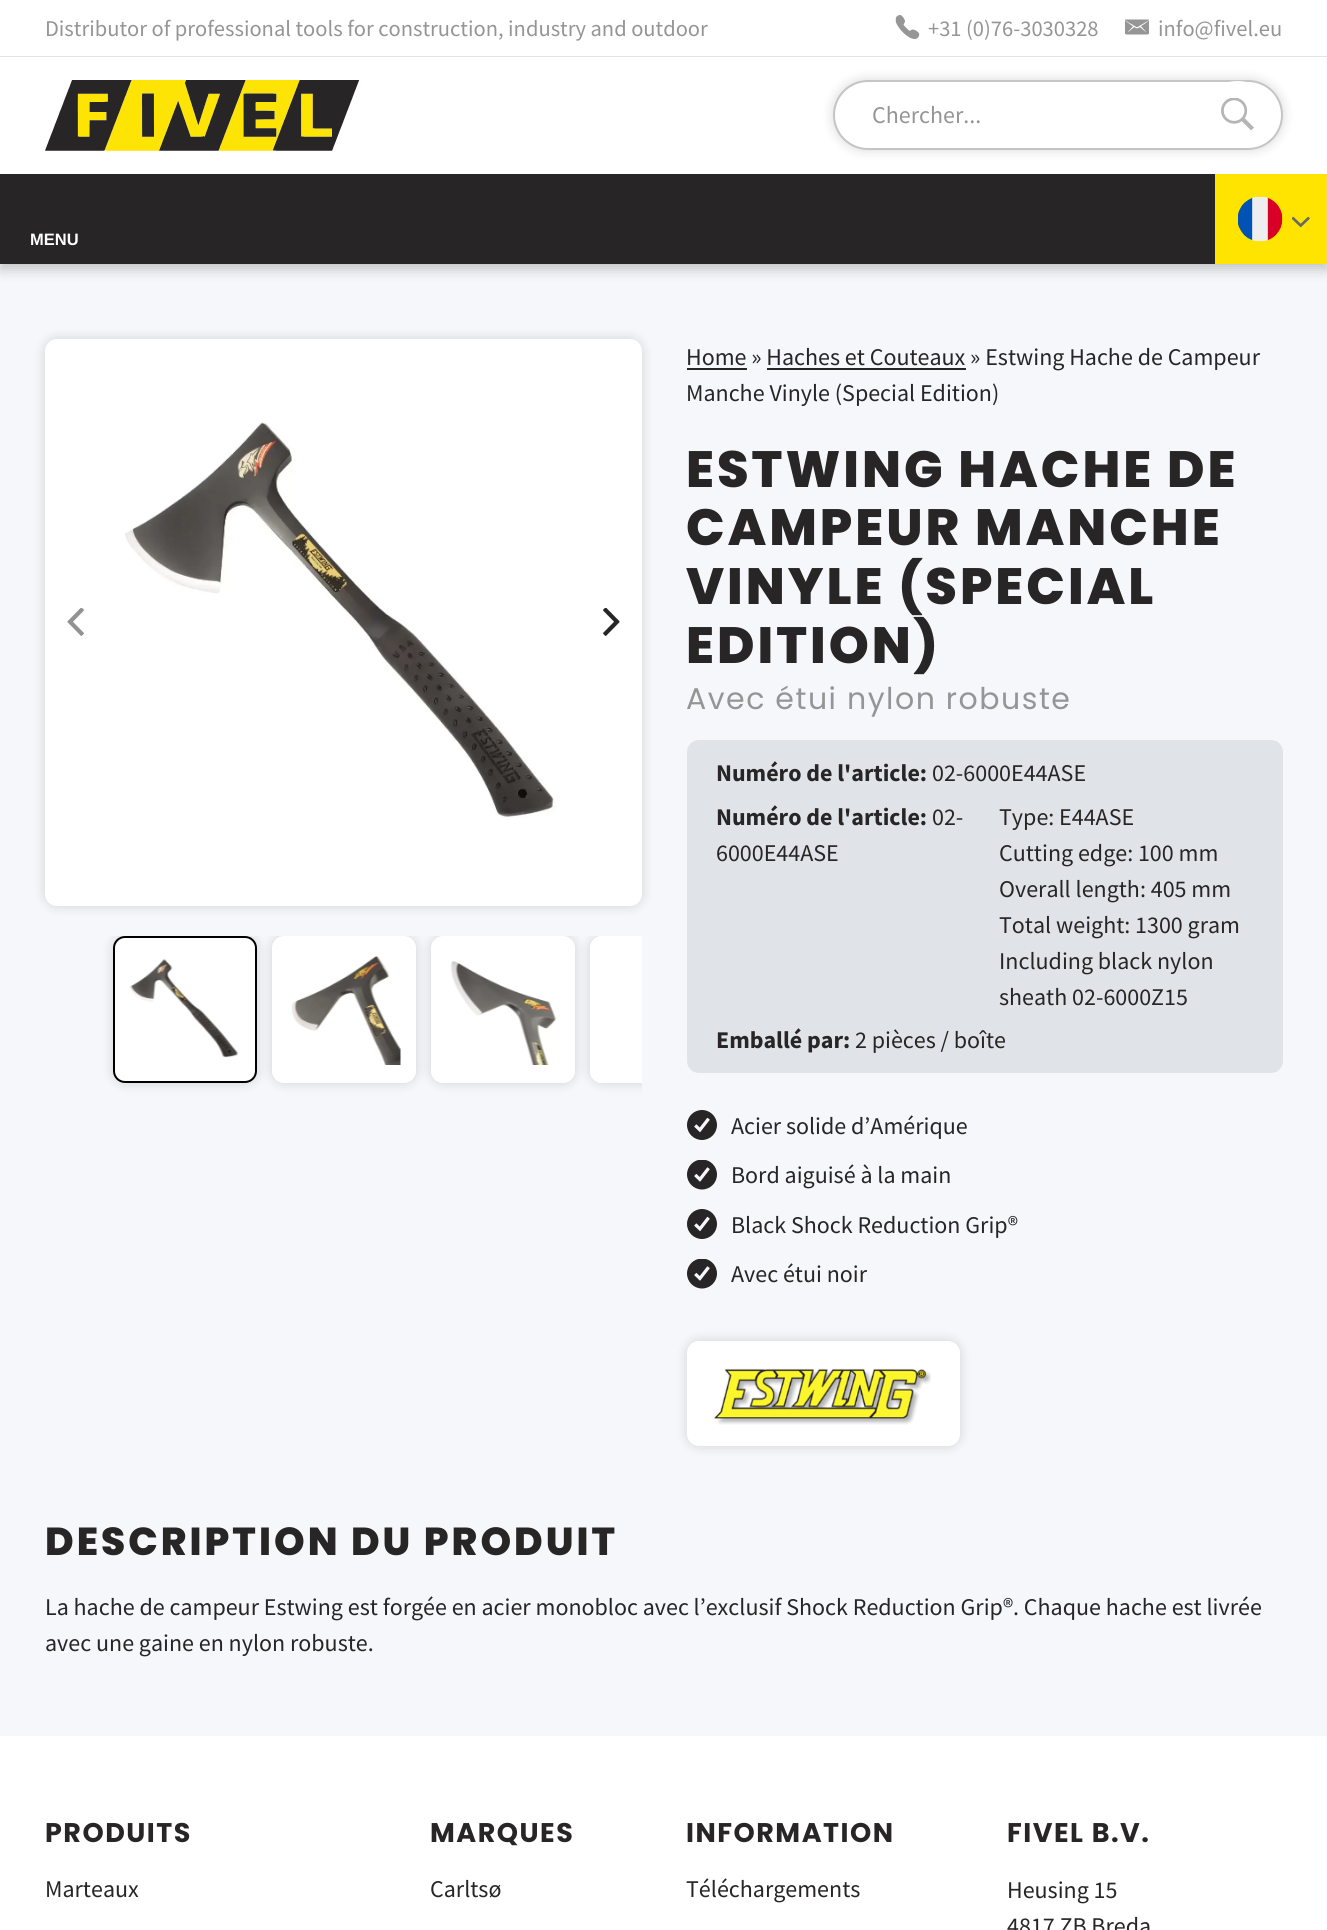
import math
import cairocffi as cairo

surface = cairo.ImageSurface(cairo.FORMAT_RGB24, 1327, 1930)
cr = cairo.Context(surface)
options = cairo.FontOptions()
options.set_hint_metrics(cairo.HINT_METRICS_OFF)
options.set_hint_style(cairo.HINT_STYLE_NONE)
cr.set_font_options(options)
cr.set_miter_limit(4)


def use_color(code):
    cr.set_source_rgb(*(v / 255 for v in bytes.fromhex(code[-6:])))


def spaced_text(x, y, s, letter, word):
    cr.move_to(x, y)
    for ch in s:
        cr.show_text(ch)
        cr.rel_move_to(letter + word * (ch == ' '), 0)


def round_rect(x, y, w, h, r):
    cr.new_sub_path()
    for i, (u, v) in enumerate([(x + w - r, y + h - r), (x + r, y + h - r), (x + r, y + r), (x + w - r, y + r)]):
        cr.arc(u, v, r, i * math.pi / 2, (i + 1) * math.pi / 2)
    cr.close_path()


def shadow(x, y, w, h, r, blur, alpha):
    cr.push_group_with_content(cairo.CONTENT_ALPHA)
    cr.set_operator(cairo.OPERATOR_SOURCE)
    for i in range(15, -16, -2):
        e = blur * i / 6
        if min(w, h) + 2 * e > 0:
            cr.set_source_rgba(0, 0, 0, alpha * math.erfc((i - 1) / 8.5) / 2)
            round_rect(x - e, y - e, w + 2 * e, h + 2 * e, max(0, min(r + e + blur * .6, min(w, h) / 2 + e)))
            cr.fill()
    cr.mask(cr.pop_group())


def picture(path, x, y, w, h):
    cr.save()
    cr.set_source_surface(cairo.ImageSurface.create_from_png(path), x, y)
    cr.rectangle(x, y, w, h)
    cr.fill()
    cr.restore()


use_color("#f5f7fa")
cr.paint()
use_color("#ffffff")
cr.rectangle(0, 0, 1327, 56)
cr.fill()
use_color("#e3e3e3")
cr.rectangle(0, 56, 1327, 1)
cr.fill()
cr.select_font_face("Source Sans Pro")
cr.set_font_size(22.5)
use_color("#959595")
cr.move_to(45, 36)
cr.show_text("Distributor of professional tools for construction, industry and outdoor")
picture("img1.png", 895, 15, 25, 24)
cr.move_to(928, 36)
cr.show_text("+31 (0)76-3030328")
picture("img2.png", 1125, 19, 24, 16)
cr.move_to(1158, 36)
cr.show_text("info@fivel.eu")
use_color("#000000")
shadow(0, 180, 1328, 90, 0, 6, 0.2)
use_color("#ffffff")
cr.rectangle(0, 57, 1327, 117)
cr.fill()
picture("img3.png", 45, 80, 315, 71)
use_color("#000000")
shadow(833, 80, 450, 70, 35, 6, 0.15)
use_color("#ffffff")
round_rect(834, 81, 448, 68, 34)
cr.fill_preserve()
use_color("#c5c5c5")
cr.stroke()
cr.set_font_size(24)
use_color("#959595")
cr.move_to(872, 123)
cr.show_text("Chercher...")
use_color("#ffffff")
cr.new_path()
cr.move_to(1237.5, 81)
cr.curve_to(1258, 81, 1275, 96, 1275, 114)
cr.curve_to(1275, 132, 1258, 147, 1237.5, 147)
cr.curve_to(1217, 147, 1200, 132, 1200, 114)
cr.curve_to(1200, 96, 1217, 81, 1237.5, 81)
cr.close_path()
cr.fill()
picture("img4.png", 1221, 98, 33, 33)
use_color("#272525")
cr.rectangle(0, 174, 1215, 90)
cr.fill()
cr.select_font_face("Liberation Sans", cairo.FONT_SLANT_NORMAL, cairo.FONT_WEIGHT_BOLD)
cr.set_font_size(16.5)
use_color("#ffffff")
cr.move_to(30, 245)
cr.show_text("MENU")
use_color("#ffe400")
cr.rectangle(1215, 174, 112, 90)
cr.fill()
picture("img5.png", 1238, 197, 45, 45)
picture("img6.png", 1292, 216, 18, 12)
use_color("#000000")
shadow(45, 339, 597, 567, 12, 6, 0.15)
use_color("#ffffff")
round_rect(45, 339, 597, 567, 12)
cr.fill()
picture("img7.png", 67, 608, 17, 28)
picture("img8.png", 125, 422, 431, 396)
picture("img9.png", 603, 608, 17, 28)
cr.save()
cr.rectangle(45, 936, 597, 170)
cr.clip()
use_color("#000000")
shadow(113, 936, 144, 147, 12, 6, 0.15)
cr.restore()
round_rect(114, 937, 142, 145, 11)
cr.fill_preserve()
use_color("#000000")
cr.stroke()
picture("img10.png", 129, 959, 110, 99)
cr.save()
cr.rectangle(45, 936, 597, 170)
cr.clip()
use_color("#000000")
shadow(272, 936, 144, 147, 12, 6, 0.15)
cr.restore()
use_color("#ffffff")
round_rect(273, 937, 142, 145, 11)
cr.fill_preserve()
cr.stroke()
picture("img11.png", 291, 956, 110, 109)
cr.save()
cr.rectangle(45, 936, 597, 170)
cr.clip()
use_color("#000000")
shadow(431, 936, 144, 147, 12, 6, 0.15)
cr.restore()
round_rect(432, 937, 142, 145, 11)
cr.fill_preserve()
cr.stroke()
picture("img12.png", 450, 961, 107, 104)
use_color("#e0e4e9")
round_rect(687, 740, 596, 333, 12)
cr.fill()
cr.save()
cr.rectangle(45, 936, 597, 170)
cr.clip()
use_color("#000000")
shadow(590, 936, 144, 147, 12, 6, 0.15)
cr.restore()
use_color("#ffffff")
cr.new_path()
cr.move_to(602, 936)
cr.line_to(642, 936)
cr.line_to(642, 1083)
cr.line_to(602, 1083)
cr.curve_to(595.5, 1083, 590, 1077.5, 590, 1071)
cr.line_to(590, 948)
cr.curve_to(590, 941.5, 595.5, 936, 602, 936)
cr.close_path()
cr.fill()
cr.select_font_face("Source Sans Pro", cairo.FONT_SLANT_NORMAL, cairo.FONT_WEIGHT_BOLD)
cr.set_font_size(24)
use_color("#272525")
cr.move_to(716, 1048)
cr.show_text("Emballé par:")
cr.save()
cr.rectangle(45, 936, 597, 170)
cr.clip()
round_rect(591, 937, 142, 145, 11)
use_color("#ffffff")
cr.stroke()
cr.restore()
cr.rectangle(687, 368, 60, 2)
cr.fill()
cr.select_font_face("Source Sans Pro")
cr.move_to(686, 365)
cr.show_text("Home » Haches et Couteaux » Estwing Hache de Campeur")
cr.rectangle(767, 368, 199, 2)
cr.fill()
cr.move_to(686, 401)
cr.show_text("Manche Vinyle (Special Edition)")
cr.select_font_face("Poppins ExtraBold")
cr.set_font_size(51)
spaced_text(686, 487, "ESTWING HACHE DE", 3, 0)
spaced_text(686, 545, "CAMPEUR MANCHE", 3, 0)
spaced_text(686, 604, "VINYLE (SPECIAL", 3, 0)
spaced_text(686, 663, "EDITION)", 3, 0)
cr.select_font_face("Poppins")
cr.set_font_size(30)
use_color("#959595")
spaced_text(686, 709, "Avec étui nylon robuste", 1.5, 0)
cr.select_font_face("Source Sans Pro", cairo.FONT_SLANT_NORMAL, cairo.FONT_WEIGHT_BOLD)
cr.set_font_size(24)
use_color("#272525")
cr.move_to(716, 781)
cr.show_text("Numéro de l'article:")
cr.select_font_face("Source Sans Pro")
cr.move_to(932, 781)
cr.show_text("02-6000E44ASE")
cr.select_font_face("Source Sans Pro", cairo.FONT_SLANT_NORMAL, cairo.FONT_WEIGHT_BOLD)
cr.move_to(716, 825)
cr.show_text("Numéro de l'article:")
cr.select_font_face("Source Sans Pro")
cr.move_to(932, 825)
cr.show_text("02-")
cr.move_to(716, 861)
cr.show_text("6000E44ASE")
cr.move_to(999, 825)
cr.show_text("Type: E44ASE")
cr.move_to(999, 861)
cr.show_text("Cutting edge: 100 mm")
cr.move_to(999, 897)
cr.show_text("Overall length: 405 mm")
cr.move_to(999, 933)
cr.show_text("Total weight: 1300 gram")
cr.move_to(999, 969)
cr.show_text("Including black nylon")
cr.move_to(999, 1005)
cr.show_text("sheath 02-6000Z15")
cr.move_to(855, 1048)
cr.show_text("2 pièces / boîte")
picture("img13.png", 687, 1110, 30, 30)
cr.move_to(731, 1134)
cr.show_text("Acier solide d’Amérique")
picture("img14.png", 687, 1160, 30, 30)
cr.move_to(731, 1183)
cr.show_text("Bord aiguisé à la main")
picture("img13.png", 687, 1209, 30, 30)
cr.move_to(731, 1233)
cr.show_text("Black Shock Reduction Grip®")
picture("img14.png", 687, 1259, 30, 30)
cr.move_to(731, 1282)
cr.show_text("Avec étui noir")
use_color("#000000")
shadow(687, 1341, 273, 105, 12, 6, 0.15)
use_color("#ffffff")
round_rect(687, 1341, 273, 105, 12)
cr.fill()
picture("img15.png", 714, 1368, 217, 57)
cr.select_font_face("Poppins ExtraBold")
cr.set_font_size(39)
use_color("#272525")
spaced_text(45, 1555, "DESCRIPTION DU PRODUIT", 3, 0)
cr.select_font_face("Source Sans Pro")
cr.set_font_size(24)
cr.move_to(45, 1615)
cr.show_text("La hache de campeur Estwing est forgée en acier monobloc avec l’exclusif Shock Reduction Grip®. Chaque hache est livrée")
cr.move_to(45, 1651)
cr.show_text("avec une gaine en nylon robuste.")
use_color("#ffffff")
cr.rectangle(0, 1736, 1327, 194)
cr.fill()
cr.select_font_face("Poppins", cairo.FONT_SLANT_NORMAL, cairo.FONT_WEIGHT_BOLD)
cr.set_font_size(27)
use_color("#272525")
spaced_text(45, 1842, "PRODUITS", 1.5, 0)
cr.select_font_face("Source Sans Pro")
cr.set_font_size(24)
cr.move_to(45, 1897)
cr.show_text("Marteaux")
cr.select_font_face("Poppins", cairo.FONT_SLANT_NORMAL, cairo.FONT_WEIGHT_BOLD)
cr.set_font_size(27)
spaced_text(430, 1842, "MARQUES", 1.5, 0)
cr.select_font_face("Source Sans Pro")
cr.set_font_size(24)
cr.move_to(430, 1897)
cr.show_text("Carltsø")
cr.select_font_face("Poppins", cairo.FONT_SLANT_NORMAL, cairo.FONT_WEIGHT_BOLD)
cr.set_font_size(27)
spaced_text(686, 1842, "INFORMATION", 1.5, 0)
cr.select_font_face("Source Sans Pro")
cr.set_font_size(24)
cr.move_to(686, 1897)
cr.show_text("Téléchargements")
cr.select_font_face("Poppins", cairo.FONT_SLANT_NORMAL, cairo.FONT_WEIGHT_BOLD)
cr.set_font_size(27)
spaced_text(1007, 1842, "FIVEL B.V.", 1.5, 0)
cr.select_font_face("Source Sans Pro")
cr.set_font_size(24)
cr.move_to(1007, 1898)
cr.show_text("Heusing 15")
cr.move_to(1007, 1934)
cr.show_text("4817 ZB Breda")
surface.write_to_png("result.png")
